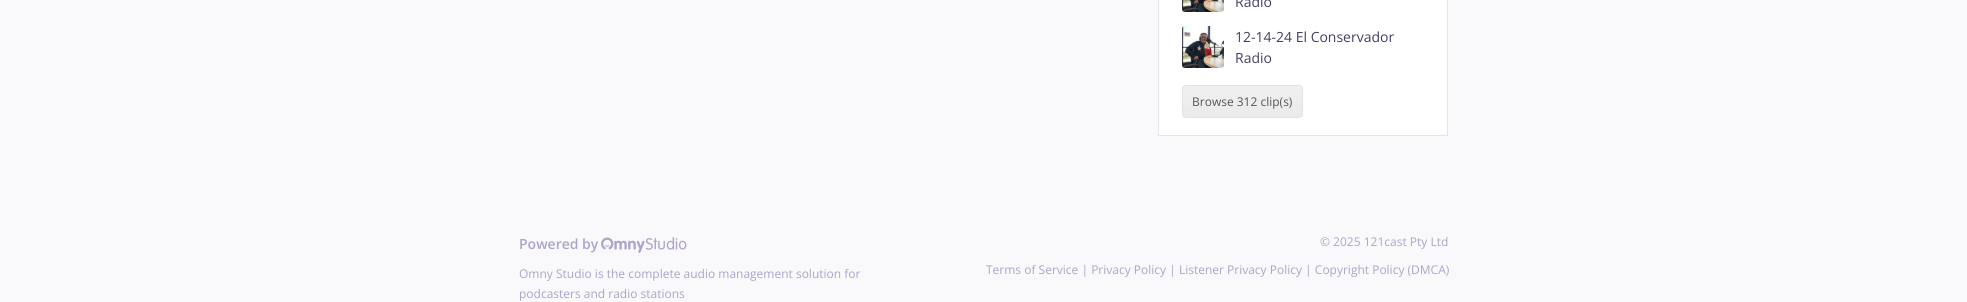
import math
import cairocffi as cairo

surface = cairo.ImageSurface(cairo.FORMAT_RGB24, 1967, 302)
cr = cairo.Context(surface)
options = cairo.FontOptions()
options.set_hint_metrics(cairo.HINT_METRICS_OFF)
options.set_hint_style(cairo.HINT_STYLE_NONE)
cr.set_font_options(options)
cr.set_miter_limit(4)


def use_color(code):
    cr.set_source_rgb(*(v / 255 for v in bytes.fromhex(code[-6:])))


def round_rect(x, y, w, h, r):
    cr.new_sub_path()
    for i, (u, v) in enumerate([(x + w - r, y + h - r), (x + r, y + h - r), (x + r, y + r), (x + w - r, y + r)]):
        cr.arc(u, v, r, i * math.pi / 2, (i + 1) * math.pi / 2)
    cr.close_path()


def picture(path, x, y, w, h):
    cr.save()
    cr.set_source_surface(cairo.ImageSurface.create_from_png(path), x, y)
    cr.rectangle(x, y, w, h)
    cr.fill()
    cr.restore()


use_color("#f9f8fb")
cr.paint()
use_color("#ffffff")
cr.rectangle(1158.5, -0.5, 289, 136)
cr.fill_preserve()
use_color("#e6e2ee")
cr.set_line_width(1)
cr.stroke()
picture("img1.png", 1182, 0, 42, 12)
cr.select_font_face("Open Sans")
cr.set_font_size(14)
use_color("#483c63")
cr.move_to(1235, 7)
cr.show_text("Radio")
picture("img2.png", 1182, 26, 42, 42)
cr.move_to(1235, 42)
cr.show_text("12-14-24 El Conservador")
cr.move_to(1235, 63)
cr.show_text("Radio")
cr.save()
round_rect(1182, 85, 121, 33, 4)
cr.clip()
gradient = cairo.LinearGradient(1243, 86, 1243, 117)
gradient.add_color_stop_rgba(0, 0.941, 0.941, 0.941, 1)
gradient.add_color_stop_rgba(1, 0.922, 0.922, 0.922, 1)
cr.set_source(gradient)
cr.rectangle(1182, 86, 121, 31)
cr.fill()
cr.restore()
round_rect(1182.5, 85.5, 120, 32, 3.5)
use_color("#e3e3e3")
cr.stroke()
cr.set_font_size(12)
use_color("#555555")
cr.move_to(1192, 106)
cr.show_text("Browse 312 clip(s)")
cr.select_font_face("Open Sans SemiBold")
cr.set_font_size(14)
use_color("#aea3c8")
cr.move_to(519, 249)
cr.show_text("Powered by")
picture("img3.png", 601, 237, 86, 16)
cr.select_font_face("Open Sans")
cr.set_font_size(12)
cr.move_to(519, 278)
cr.show_text("Omny Studio is the complete audio management solution for")
cr.move_to(519, 298)
cr.show_text("podcasters and radio stations")
cr.move_to(1320, 246)
cr.show_text("© 2025 121cast Pty Ltd")
cr.move_to(986, 274)
cr.show_text("Terms of Service | Privacy Policy | Listener Privacy Policy | Copyright Policy (DMCA)")
surface.write_to_png("result.png")
